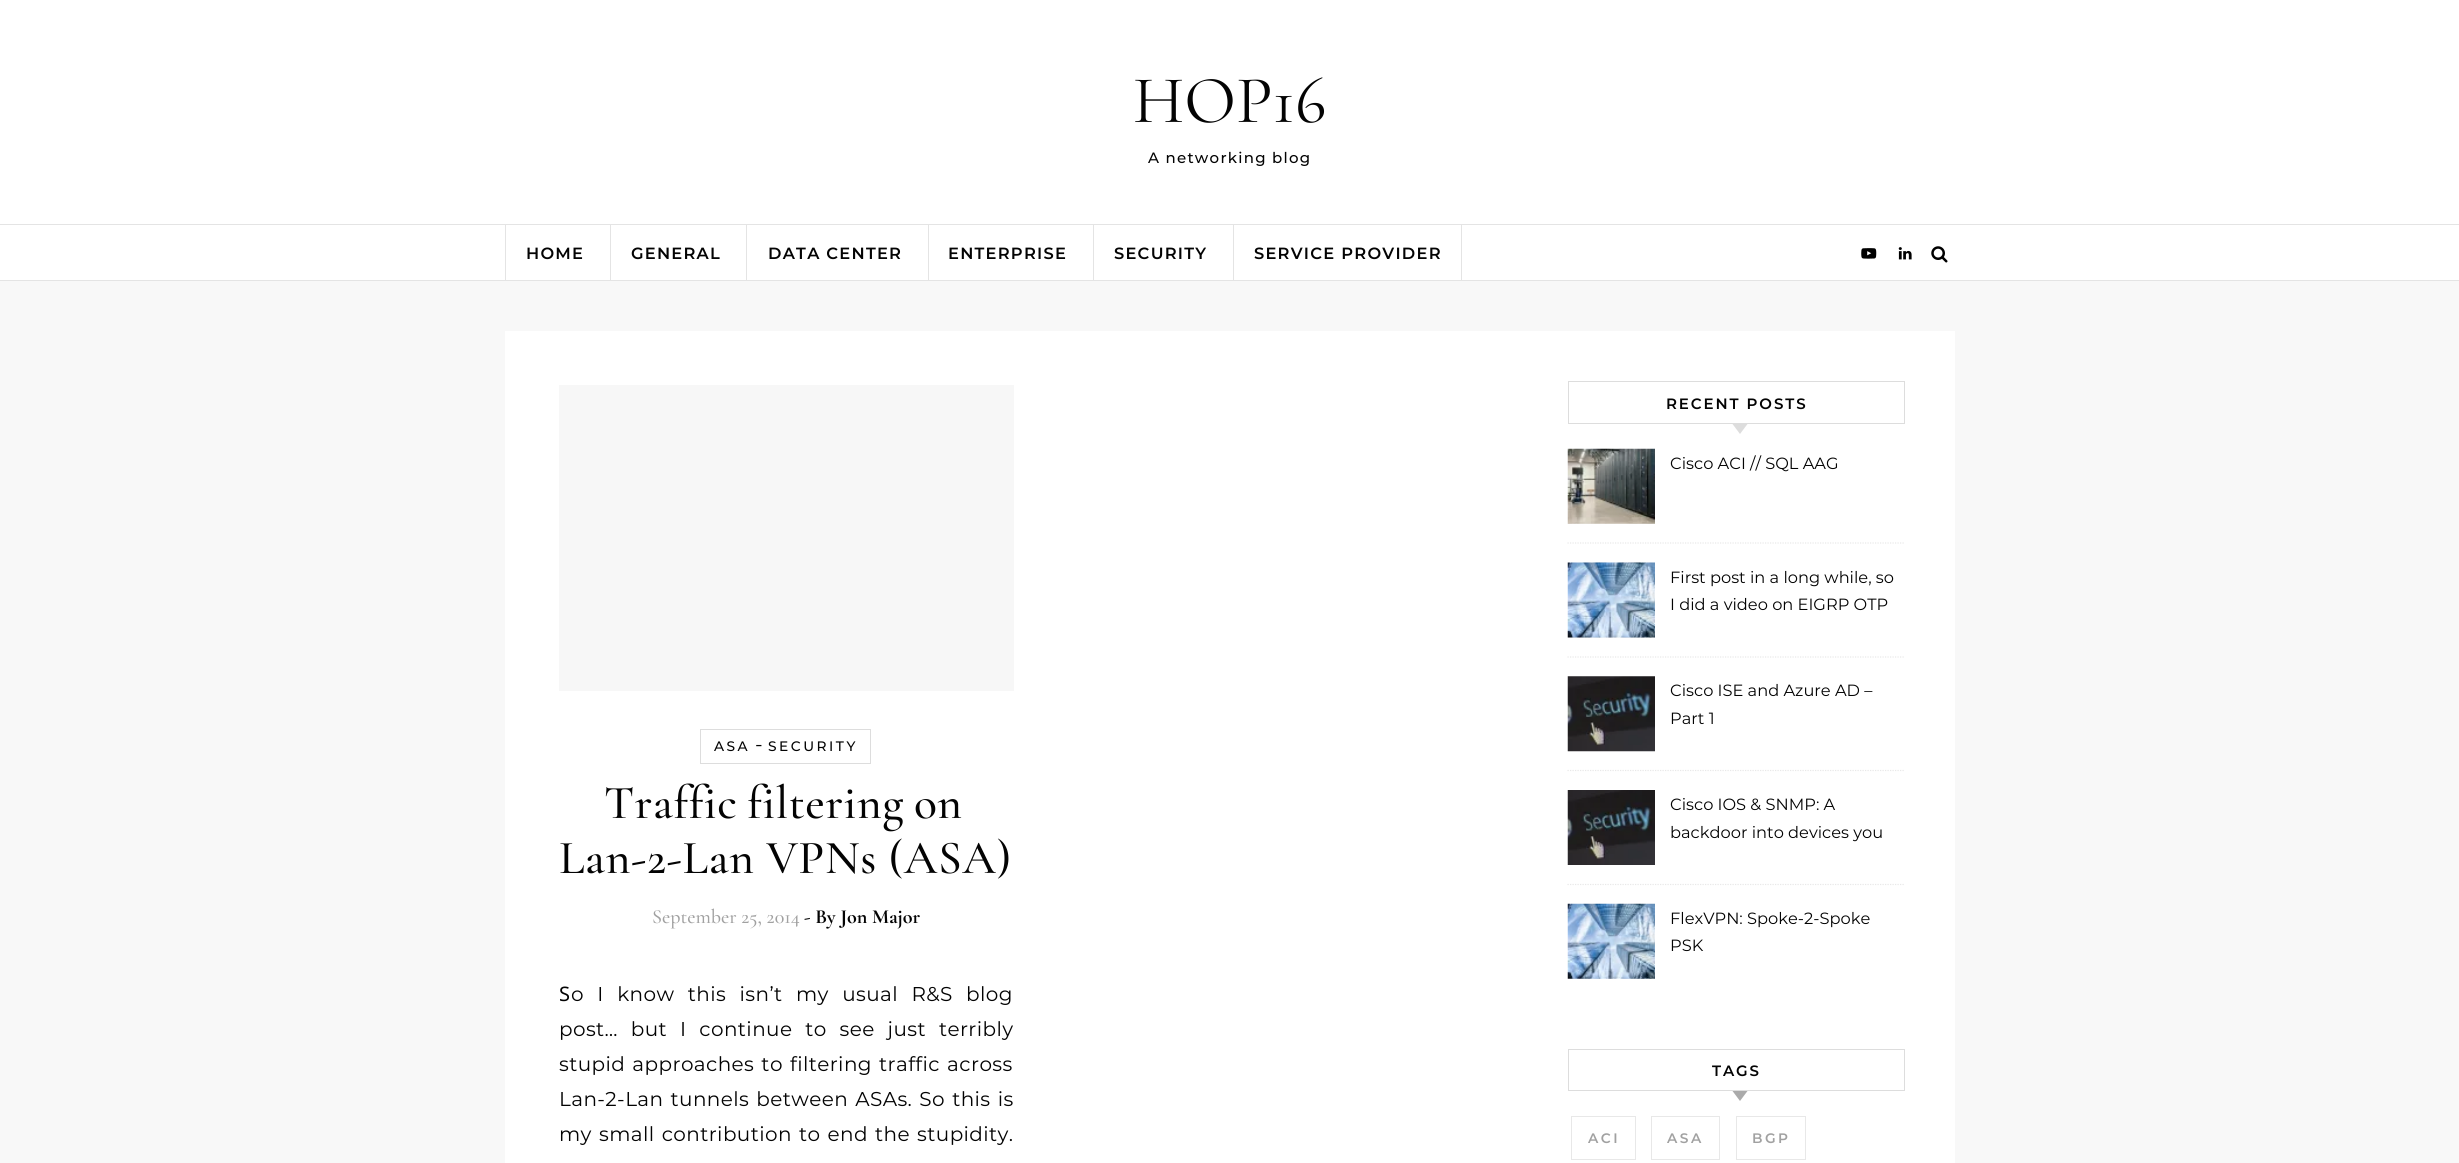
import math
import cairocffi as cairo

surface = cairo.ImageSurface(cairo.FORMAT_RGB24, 2459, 1163)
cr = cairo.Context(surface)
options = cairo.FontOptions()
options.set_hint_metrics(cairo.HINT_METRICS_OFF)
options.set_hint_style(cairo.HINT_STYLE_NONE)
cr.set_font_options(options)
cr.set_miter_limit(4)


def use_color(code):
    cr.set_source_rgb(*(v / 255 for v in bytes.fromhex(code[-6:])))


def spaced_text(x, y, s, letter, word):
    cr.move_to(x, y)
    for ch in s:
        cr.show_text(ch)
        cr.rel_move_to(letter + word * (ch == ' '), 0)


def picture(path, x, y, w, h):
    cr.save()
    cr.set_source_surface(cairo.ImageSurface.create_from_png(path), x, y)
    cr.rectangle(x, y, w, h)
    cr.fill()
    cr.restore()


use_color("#f8f8f8")
cr.paint()
use_color("#ffffff")
cr.rectangle(0, 0, 2459, 224)
cr.fill()
use_color("#e4e4e4")
cr.rectangle(0, 224, 2459, 1)
cr.fill()
cr.select_font_face("Cormorant Garamond")
cr.set_font_size(67.5)
use_color("#030303")
cr.move_to(1133, 122)
cr.show_text("HOP16")
cr.select_font_face("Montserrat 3 Thin")
cr.set_font_size(15)
spaced_text(1148, 163, "A networking blog", 1.25, 0)
use_color("#ffffff")
cr.rectangle(0, 225, 2459, 55)
cr.fill()
use_color("#e4e4e4")
cr.rectangle(0, 280, 2459, 1)
cr.fill()
cr.rectangle(505, 225, 1, 55)
cr.fill()
cr.select_font_face("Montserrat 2 Thin")
cr.set_font_size(16.25)
use_color("#030303")
spaced_text(526, 259, "HOME", 1.25, 0)
use_color("#e4e4e4")
cr.rectangle(610, 225, 1, 55)
cr.fill()
use_color("#030303")
spaced_text(631, 259, "GENERAL", 1.25, 0)
use_color("#e4e4e4")
cr.rectangle(746, 225, 1, 55)
cr.fill()
use_color("#030303")
spaced_text(768, 259, "DATA CENTER", 1.25, 0)
use_color("#e4e4e4")
cr.rectangle(928, 225, 1, 55)
cr.fill()
use_color("#030303")
spaced_text(948, 259, "ENTERPRISE", 1.25, 0)
use_color("#e4e4e4")
cr.rectangle(1093, 225, 1, 55)
cr.fill()
use_color("#030303")
spaced_text(1114, 259, "SECURITY", 1.25, 0)
use_color("#e4e4e4")
cr.rectangle(1461, 225, 1, 55)
cr.fill()
cr.rectangle(1233, 225, 1, 55)
cr.fill()
use_color("#030303")
spaced_text(1254, 259, "SERVICE PROVIDER", 1.25, 0)
picture("img1.png", 1861, 248, 16, 11)
picture("img2.png", 1898, 247, 14, 13)
picture("img3.png", 1931, 246, 17, 17)
use_color("#ffffff")
cr.rectangle(505, 331, 1450, 832)
cr.fill()
use_color("#f7f7f7")
cr.rectangle(559, 385, 455, 306)
cr.fill()
cr.rectangle(700.5, 729.5, 170, 34)
use_color("#dddddd")
cr.set_line_width(1)
cr.stroke()
cr.select_font_face("Montserrat 3 Thin")
cr.set_font_size(13.75)
use_color("#030303")
spaced_text(714, 751, "ASA", 2.5, 0)
cr.select_font_face("Montserrat Thin")
cr.set_font_size(20)
cr.move_to(755, 751)
cr.show_text("-")
cr.select_font_face("Montserrat 3 Thin")
cr.set_font_size(13.75)
spaced_text(768, 751, "SECURITY", 2.5, 0)
cr.select_font_face("Cormorant Garamond Medium")
cr.set_font_size(47.5)
spaced_text(604, 818, "Traffic filtering on", 0.6, -2)
spaced_text(559, 873, "Lan-2-Lan VPNs (ASA)", 0.6, 0)
cr.set_font_size(20)
use_color("#a1a1a1")
cr.move_to(652, 923)
cr.show_text("September 25, 2014")
cr.select_font_face("Cormorant Garamond", cairo.FONT_SLANT_NORMAL, cairo.FONT_WEIGHT_BOLD)
use_color("#030303")
cr.move_to(804, 923)
cr.show_text("- By Jon Major")
cr.select_font_face("Noto Sans")
spaced_text(559, 1001, "S", 0.4, 0)
cr.select_font_face("Montserrat Thin")
spaced_text(571, 1001, "o I know this isn’t my usual R&S blog", 0.4, 7.75)
spaced_text(559, 1036, "post… but I continue to see just terribly", 0.4, 7.25)
spaced_text(559, 1071, "stupid approaches to filtering traffic across", 0.4, 1.5)
spaced_text(559, 1106, "Lan-2-Lan tunnels between ASAs. So this is", 0.4, 1.5)
spaced_text(559, 1141, "my small contribution to end the stupidity.", 0.4, 1.5)
cr.rectangle(1568.5, 381.5, 336, 42)
use_color("#dddddd")
cr.stroke()
cr.select_font_face("Montserrat 2 Thin")
cr.set_font_size(15)
use_color("#030303")
spaced_text(1666, 409, "RECENT POSTS", 1.9, 0)
use_color("#dddddd")
cr.new_path()
cr.move_to(1732.5, 424)
cr.line_to(1747.5, 424)
cr.line_to(1740, 434)
cr.close_path()
cr.fill()
cr.new_path()
cr.move_to(1567.5, 543)
cr.line_to(1905, 543)
use_color("#e8e8e8")
cr.set_line_width(1.2)
cr.set_dash([1.25, 1.25])
cr.stroke()
picture("img4.png", 1567, 448, 88, 76)
cr.select_font_face("Montserrat Thin")
cr.set_font_size(16.25)
use_color("#030303")
cr.move_to(1670, 469)
cr.show_text("Cisco ACI // SQL AAG")
cr.new_path()
cr.move_to(1567.5, 657)
cr.line_to(1905, 657)
use_color("#e8e8e8")
cr.stroke()
use_color("#f2f2f2")
cr.rectangle(1568, 637, 87, 1)
cr.fill()
picture("img5.png", 1567, 562, 88, 76)
use_color("#030303")
cr.move_to(1670, 583)
cr.show_text("First post in a long while, so")
cr.move_to(1670, 610)
cr.show_text("I did a video on EIGRP OTP")
cr.new_path()
cr.move_to(1567.5, 770.5)
cr.line_to(1905, 770.5)
use_color("#e8e8e8")
cr.stroke()
picture("img6.png", 1567, 676, 88, 76)
use_color("#030303")
cr.move_to(1670, 696)
cr.show_text("Cisco ISE and Azure AD –")
cr.move_to(1670, 724)
cr.show_text("Part 1")
cr.new_path()
cr.move_to(1567.5, 884.5)
cr.line_to(1905, 884.5)
use_color("#e8e8e8")
cr.stroke()
picture("img7.png", 1567, 790, 88, 75)
use_color("#030303")
cr.move_to(1670, 810)
cr.show_text("Cisco IOS & SNMP: A")
cr.move_to(1670, 838)
cr.show_text("backdoor into devices you")
picture("img8.png", 1567, 903, 88, 76)
cr.move_to(1670, 924)
cr.show_text("FlexVPN: Spoke-2-Spoke")
cr.move_to(1670, 951)
cr.show_text("PSK")
cr.rectangle(1568.5, 1049.5, 336, 41)
use_color("#dddddd")
cr.set_line_width(1)
cr.set_dash([])
cr.stroke()
cr.select_font_face("Montserrat 2 Thin")
cr.set_font_size(15)
use_color("#030303")
spaced_text(1712, 1076, "TAGS", 1.9, 0)
use_color("#aaaaaa")
cr.new_path()
cr.move_to(1732.5, 1091)
cr.line_to(1747.5, 1091)
cr.line_to(1740, 1101)
cr.close_path()
cr.fill()
cr.rectangle(1571.5, 1116.5, 64, 43)
use_color("#e8e8e8")
cr.stroke()
cr.set_font_size(13.75)
use_color("#a1a1a1")
spaced_text(1588, 1143, "ACI", 2.5, 0)
cr.rectangle(1651.5, 1116.5, 68, 43)
use_color("#e8e8e8")
cr.stroke()
use_color("#a1a1a1")
spaced_text(1667, 1143, "ASA", 2.5, 0)
cr.rectangle(1736.5, 1116.5, 69, 43)
use_color("#e8e8e8")
cr.stroke()
use_color("#a1a1a1")
spaced_text(1752, 1143, "BGP", 2.5, 0)
surface.write_to_png("result.png")
